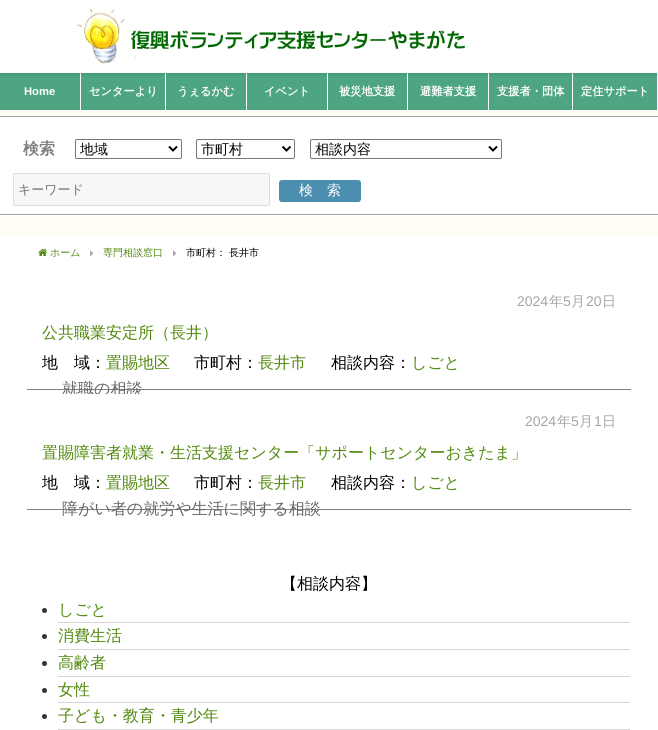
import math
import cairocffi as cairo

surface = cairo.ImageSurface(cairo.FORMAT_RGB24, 658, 730)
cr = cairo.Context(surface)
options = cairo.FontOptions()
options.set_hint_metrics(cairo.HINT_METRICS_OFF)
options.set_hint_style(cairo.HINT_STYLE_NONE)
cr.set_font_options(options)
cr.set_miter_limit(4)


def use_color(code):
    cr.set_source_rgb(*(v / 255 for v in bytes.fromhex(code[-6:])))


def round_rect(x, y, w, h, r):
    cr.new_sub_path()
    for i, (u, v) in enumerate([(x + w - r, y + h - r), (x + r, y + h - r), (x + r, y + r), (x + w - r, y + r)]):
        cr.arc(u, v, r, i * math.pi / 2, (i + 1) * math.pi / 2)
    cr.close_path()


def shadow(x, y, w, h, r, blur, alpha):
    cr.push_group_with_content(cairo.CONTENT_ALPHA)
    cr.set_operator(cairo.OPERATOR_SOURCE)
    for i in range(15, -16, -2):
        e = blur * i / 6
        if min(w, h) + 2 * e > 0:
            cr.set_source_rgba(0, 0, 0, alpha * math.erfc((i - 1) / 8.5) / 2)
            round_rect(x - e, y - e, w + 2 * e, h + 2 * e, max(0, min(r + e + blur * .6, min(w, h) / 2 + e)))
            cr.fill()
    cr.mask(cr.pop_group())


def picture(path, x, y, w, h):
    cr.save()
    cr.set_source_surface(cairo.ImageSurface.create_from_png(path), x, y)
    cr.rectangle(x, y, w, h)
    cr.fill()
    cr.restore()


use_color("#fffdf4")
cr.paint()
use_color("#ffffff")
cr.rectangle(80, 73, 578, 37)
cr.fill()
use_color("#4da581")
cr.rectangle(0, 73, 80, 37)
cr.fill()
cr.rectangle(81, 73, 84, 37)
cr.fill()
cr.rectangle(166, 73, 80, 37)
cr.fill()
cr.rectangle(247, 73, 80, 37)
cr.fill()
cr.rectangle(328, 73, 79, 37)
cr.fill()
cr.rectangle(408, 73, 80, 37)
cr.fill()
cr.rectangle(489, 73, 83, 37)
cr.fill()
cr.rectangle(573, 73, 84, 37)
cr.fill()
use_color("#000000")
shadow(0, 0, 658, 73, 0, 2, 0.2)
use_color("#ffffff")
cr.rectangle(0, 0, 658, 73)
cr.fill()
picture("img1.png", 76, 8, 389, 61)
cr.select_font_face("Liberation Sans", cairo.FONT_SLANT_NORMAL, cairo.FONT_WEIGHT_BOLD)
cr.set_font_size(11.25)
cr.move_to(24, 95)
cr.show_text("Home")
cr.select_font_face("WenQuanYi Zen Hei", cairo.FONT_SLANT_NORMAL, cairo.FONT_WEIGHT_BOLD)
cr.move_to(89, 95)
cr.show_text("センターより")
cr.move_to(177, 95)
cr.show_text("うぇるかむ")
cr.move_to(264, 95)
cr.show_text("イベント")
cr.move_to(339, 95)
cr.show_text("被災地支援")
cr.move_to(420, 95)
cr.show_text("避難者支援")
cr.move_to(497, 95)
cr.show_text("支援者・団体")
cr.move_to(581, 95)
cr.show_text("定住サポート")
cr.rectangle(0, 117, 658, 97)
cr.fill()
use_color("#a5a5a5")
cr.rectangle(0, 116, 658, 1)
cr.fill()
cr.rectangle(0, 214, 658, 1)
cr.fill()
cr.set_font_size(16)
use_color("#7d7d7d")
cr.move_to(23, 154)
cr.show_text("検索")
round_rect(75.5, 139.5, 106, 19, 1.5)
use_color("#767676")
cr.set_line_width(1)
cr.stroke()
cr.new_path()
cr.move_to(169, 146.5)
cr.line_to(173, 150.5)
cr.line_to(177, 146.5)
use_color("#000000")
cr.set_line_width(2)
cr.stroke()
cr.select_font_face("WenQuanYi Zen Hei Medium")
cr.set_font_size(14)
cr.move_to(80, 154)
cr.show_text("地域")
round_rect(196.5, 139.5, 98, 19, 1.5)
use_color("#767676")
cr.set_line_width(1)
cr.stroke()
cr.new_path()
cr.move_to(282.5, 146.5)
cr.line_to(286.5, 150.5)
cr.line_to(290.5, 146.5)
use_color("#000000")
cr.set_line_width(2)
cr.stroke()
cr.move_to(201, 154)
cr.show_text("市町村")
round_rect(310.5, 139.5, 191, 19, 1.5)
use_color("#767676")
cr.set_line_width(1)
cr.stroke()
cr.new_path()
cr.move_to(489, 146.5)
cr.line_to(493, 150.5)
cr.line_to(497, 146.5)
use_color("#000000")
cr.set_line_width(2)
cr.stroke()
cr.move_to(315, 154)
cr.show_text("相談内容")
use_color("#f7f7f7")
round_rect(13.5, 173.5, 256, 32, 1.5)
cr.fill_preserve()
use_color("#dddddd")
cr.set_line_width(1)
cr.stroke()
cr.set_font_size(13)
use_color("#757575")
cr.move_to(18, 194)
cr.show_text("キーワード")
use_color("#4c8eaf")
round_rect(279, 180, 82, 22, 3)
cr.fill()
cr.set_font_size(14)
use_color("#ffffff")
cr.move_to(299, 195)
cr.show_text("検　索")
cr.rectangle(0, 235, 658, 495)
cr.fill()
picture("img2.png", 38, 248, 10, 8)
cr.set_font_size(10)
use_color("#51890d")
cr.move_to(50, 256)
cr.show_text("ホーム")
picture("img3.png", 90, 250, 4, 7)
cr.move_to(103, 256)
cr.show_text("専門相談窓口")
picture("img3.png", 173, 250, 4, 7)
use_color("#000000")
cr.move_to(186, 256)
cr.show_text("市町村： 長井市")
use_color("#808080")
cr.rectangle(27, 389, 604, 1)
cr.fill()
cr.select_font_face("Liberation Sans")
cr.set_font_size(14)
use_color("#a5a5a5")
cr.move_to(517, 306)
cr.show_text("2024")
cr.select_font_face("WenQuanYi Zen Hei Medium")
cr.move_to(549, 306)
cr.show_text("年")
cr.select_font_face("Liberation Sans")
cr.move_to(563, 306)
cr.show_text("5")
cr.select_font_face("WenQuanYi Zen Hei Medium")
cr.move_to(571, 306)
cr.show_text("月")
cr.select_font_face("Liberation Sans")
cr.move_to(586, 306)
cr.show_text("20")
cr.select_font_face("WenQuanYi Zen Hei Medium")
cr.move_to(602, 306)
cr.show_text("日")
cr.set_font_size(16)
use_color("#51890d")
cr.move_to(42, 338)
cr.show_text("公共職業安定所（長井）")
use_color("#000000")
cr.move_to(42, 368)
cr.show_text("地　域：")
use_color("#51890d")
cr.move_to(106, 368)
cr.show_text("置賜地区")
use_color("#000000")
cr.move_to(194, 368)
cr.show_text("市町村：")
use_color("#51890d")
cr.move_to(258, 368)
cr.show_text("長井市")
use_color("#000000")
cr.move_to(331, 368)
cr.show_text("相談内容：")
use_color("#51890d")
cr.move_to(411, 368)
cr.show_text("しごと")
use_color("#666666")
cr.move_to(62, 394)
cr.show_text("就職の相談")
use_color("#ffffff")
cr.rectangle(63, 394, 79, 3)
cr.fill()
use_color("#808080")
cr.rectangle(27, 509, 604, 1)
cr.fill()
cr.select_font_face("Liberation Sans")
cr.set_font_size(14)
use_color("#a5a5a5")
cr.move_to(525, 426)
cr.show_text("2024")
cr.select_font_face("WenQuanYi Zen Hei Medium")
cr.move_to(557, 426)
cr.show_text("年")
cr.select_font_face("Liberation Sans")
cr.move_to(571, 426)
cr.show_text("5")
cr.select_font_face("WenQuanYi Zen Hei Medium")
cr.move_to(579, 426)
cr.show_text("月")
cr.select_font_face("Liberation Sans")
cr.move_to(594, 426)
cr.show_text("1")
cr.select_font_face("WenQuanYi Zen Hei Medium")
cr.move_to(602, 426)
cr.show_text("日")
cr.set_font_size(16)
use_color("#51890d")
cr.move_to(42, 458)
cr.show_text("置賜障害者就業・生活支援センター「サポートセンターおきたま」")
use_color("#000000")
cr.move_to(42, 488)
cr.show_text("地　域：")
use_color("#51890d")
cr.move_to(106, 488)
cr.show_text("置賜地区")
use_color("#000000")
cr.move_to(194, 488)
cr.show_text("市町村：")
use_color("#51890d")
cr.move_to(258, 488)
cr.show_text("長井市")
use_color("#000000")
cr.move_to(331, 488)
cr.show_text("相談内容：")
use_color("#51890d")
cr.move_to(411, 488)
cr.show_text("しごと")
use_color("#666666")
cr.move_to(62, 514)
cr.show_text("障がい者の就労や生活に関する相談")
use_color("#000000")
cr.move_to(281, 589)
cr.show_text("【相談内容】")
use_color("#d6d6d6")
cr.rectangle(58, 622, 572, 1)
cr.fill()
use_color("#333333")
cr.arc(44.5, 610.5, 2.5, 0, 2 * math.pi)
cr.fill()
use_color("#51890d")
cr.move_to(58, 615)
cr.show_text("しごと")
use_color("#d6d6d6")
cr.rectangle(58, 649, 572, 1)
cr.fill()
use_color("#333333")
cr.arc(44.5, 636.5, 2.5, 0, 2 * math.pi)
cr.fill()
use_color("#51890d")
cr.move_to(58, 641)
cr.show_text("消費生活")
use_color("#d6d6d6")
cr.rectangle(58, 676, 572, 1)
cr.fill()
use_color("#333333")
cr.arc(44.5, 663.5, 2.5, 0, 2 * math.pi)
cr.fill()
use_color("#51890d")
cr.move_to(58, 668)
cr.show_text("高齢者")
use_color("#d6d6d6")
cr.rectangle(58, 702, 572, 1)
cr.fill()
use_color("#333333")
cr.arc(44.5, 690.5, 2.5, 0, 2 * math.pi)
cr.fill()
use_color("#51890d")
cr.move_to(58, 695)
cr.show_text("女性")
use_color("#d6d6d6")
cr.rectangle(58, 729, 572, 1)
cr.fill()
use_color("#333333")
cr.arc(44.5, 716.5, 2.5, 0, 2 * math.pi)
cr.fill()
use_color("#51890d")
cr.move_to(58, 721)
cr.show_text("子ども・教育・青少年")
surface.write_to_png("result.png")
